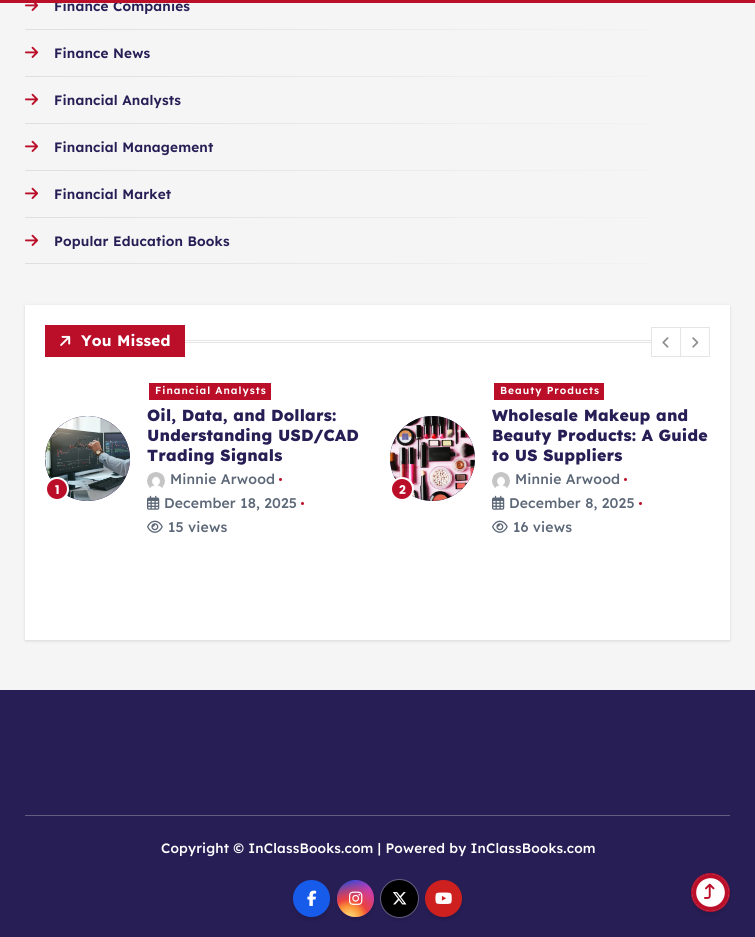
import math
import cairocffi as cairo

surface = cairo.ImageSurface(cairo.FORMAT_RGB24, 755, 937)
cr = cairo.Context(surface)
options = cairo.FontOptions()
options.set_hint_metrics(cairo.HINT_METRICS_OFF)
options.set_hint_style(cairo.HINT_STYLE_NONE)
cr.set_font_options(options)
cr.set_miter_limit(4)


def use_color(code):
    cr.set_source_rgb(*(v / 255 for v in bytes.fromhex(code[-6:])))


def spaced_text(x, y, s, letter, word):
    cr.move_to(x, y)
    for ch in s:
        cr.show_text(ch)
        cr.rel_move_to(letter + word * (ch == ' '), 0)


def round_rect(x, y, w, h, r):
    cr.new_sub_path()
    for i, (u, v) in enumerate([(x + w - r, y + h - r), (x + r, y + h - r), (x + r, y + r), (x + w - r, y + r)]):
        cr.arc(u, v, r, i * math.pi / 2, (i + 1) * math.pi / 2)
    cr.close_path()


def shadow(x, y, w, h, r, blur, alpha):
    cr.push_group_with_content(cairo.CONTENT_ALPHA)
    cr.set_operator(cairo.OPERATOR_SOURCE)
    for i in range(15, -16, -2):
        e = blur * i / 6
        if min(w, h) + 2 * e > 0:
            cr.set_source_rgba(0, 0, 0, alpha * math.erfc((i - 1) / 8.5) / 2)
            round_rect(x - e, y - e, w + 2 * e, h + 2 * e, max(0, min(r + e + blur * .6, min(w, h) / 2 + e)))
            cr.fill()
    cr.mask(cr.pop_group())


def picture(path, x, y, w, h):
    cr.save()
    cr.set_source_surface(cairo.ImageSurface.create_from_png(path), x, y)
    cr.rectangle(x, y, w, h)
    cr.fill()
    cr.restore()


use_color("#f5f5f5")
cr.paint()
cr.select_font_face("Lexend Deca SemiBold")
cr.set_font_size(13.6)
use_color("#271e55")
spaced_text(54, 11, "Finance Companies", 0.15, 0)
use_color("#ba0e29")
cr.rectangle(0, 0, 755, 3)
cr.fill()
picture("img1.png", 25, 3, 14, 8)
gradient = cairo.LinearGradient(25, 30, 730, 29)
gradient.add_color_stop_rgba(0, 0.875, 0.875, 0.875, 1)
gradient.add_color_stop_rgba(1, 0.961, 0.961, 0.961, 1)
cr.set_source(gradient)
cr.rectangle(25, 29, 625, 1)
cr.fill()
picture("img2.png", 25, 46, 14, 12)
use_color("#271e55")
spaced_text(54, 58, "Finance News", 0.15, 0)
gradient = cairo.LinearGradient(25, 77, 730, 76)
gradient.add_color_stop_rgba(0, 0.875, 0.875, 0.875, 1)
gradient.add_color_stop_rgba(1, 0.961, 0.961, 0.961, 1)
cr.set_source(gradient)
cr.rectangle(25, 76, 625, 1)
cr.fill()
picture("img2.png", 25, 93, 14, 12)
use_color("#271e55")
spaced_text(54, 105, "Financial Analysts", 0.15, 0)
gradient = cairo.LinearGradient(25, 124, 730, 123)
gradient.add_color_stop_rgba(0, 0.875, 0.875, 0.875, 1)
gradient.add_color_stop_rgba(1, 0.961, 0.961, 0.961, 1)
cr.set_source(gradient)
cr.rectangle(25, 123, 625, 1)
cr.fill()
picture("img2.png", 25, 140, 14, 12)
use_color("#271e55")
spaced_text(54, 152, "Financial Management", 0.15, 0)
gradient = cairo.LinearGradient(25, 171, 730, 170)
gradient.add_color_stop_rgba(0, 0.875, 0.875, 0.875, 1)
gradient.add_color_stop_rgba(1, 0.961, 0.961, 0.961, 1)
cr.set_source(gradient)
cr.rectangle(25, 170, 625, 1)
cr.fill()
picture("img2.png", 25, 187, 14, 12)
use_color("#271e55")
spaced_text(54, 199, "Financial Market", 0.15, 0)
gradient = cairo.LinearGradient(25, 218, 730, 217)
gradient.add_color_stop_rgba(0, 0.875, 0.875, 0.875, 1)
gradient.add_color_stop_rgba(1, 0.961, 0.961, 0.961, 1)
cr.set_source(gradient)
cr.rectangle(25, 217, 625, 1)
cr.fill()
picture("img2.png", 25, 234, 14, 12)
use_color("#271e55")
spaced_text(54, 246, "Popular Education Books", 0.15, 0)
gradient = cairo.LinearGradient(25, 264, 730, 264)
gradient.add_color_stop_rgba(0, 0.875, 0.875, 0.875, 1)
gradient.add_color_stop_rgba(1, 0.961, 0.961, 0.961, 1)
cr.set_source(gradient)
cr.rectangle(25, 263, 625, 1)
cr.fill()
use_color("#000000")
shadow(25, 306, 705, 335, 0, 1.5, 0.12)
use_color("#ffffff")
cr.rectangle(25, 305, 705, 335)
cr.fill()
use_color("#ba0e29")
cr.rectangle(45, 325, 140, 32)
cr.fill()
picture("img3.png", 60, 335, 11, 11)
cr.select_font_face("Lexend Deca", cairo.FONT_SLANT_NORMAL, cairo.FONT_WEIGHT_BOLD)
cr.set_font_size(15.25)
use_color("#ffffff")
spaced_text(81, 346, "You Missed", 0.25, 0)
use_color("#e5e5e5")
cr.rectangle(185, 340, 466, 1)
cr.fill()
cr.rectangle(185, 342, 466, 1)
cr.fill()
cr.rectangle(651.5, 327.5, 29, 29)
cr.set_line_width(1)
cr.stroke()
picture("img4.png", 662, 337, 7, 11)
cr.rectangle(680.5, 327.5, 29, 29)
cr.stroke()
picture("img5.png", 692, 337, 7, 11)
use_color("#271e55")
cr.arc(87.5, 458.5, 42.5, 0, 2 * math.pi)
cr.fill()
picture("img6.png", 45, 416, 85, 85)
use_color("#ba0e29")
cr.arc(57, 489, 11, 0, 2 * math.pi)
cr.fill_preserve()
use_color("#ffffff")
cr.set_line_width(2)
cr.stroke()
cr.select_font_face("Poppins", cairo.FONT_SLANT_NORMAL, cairo.FONT_WEIGHT_BOLD)
cr.set_font_size(12)
spaced_text(55, 494, "1", 0.15, 0)
use_color("#ba0e29")
cr.rectangle(149, 383, 122, 17)
cr.fill()
cr.select_font_face("Lexend Deca SemiBold")
cr.set_font_size(10.25)
use_color("#ffffff")
spaced_text(155, 394, "Financial Analysts", 1, 0)
cr.select_font_face("Lexend Deca ExtraBold")
cr.set_font_size(16)
use_color("#271e55")
spaced_text(147, 421, "Oil, Data, and Dollars:", 0.15, 0)
spaced_text(147, 441, "Understanding USD/CAD", 0.15, 0)
spaced_text(147, 461, "Trading Signals", 0.15, 0)
picture("img7.png", 147, 472, 18, 16)
cr.select_font_face("Lexend Deca Medium")
cr.set_font_size(14)
use_color("#5c6777")
spaced_text(170, 484, "Minnie Arwood", 0.15, 0)
use_color("#ba0e29")
cr.new_path()
cr.arc(280.5, 479.5, 1.5, 0, 2 * math.pi)
cr.fill()
picture("img8.png", 147, 495, 13, 15)
use_color("#5c6777")
spaced_text(164, 508, "December 18, 2025", 0.15, 0)
use_color("#ba0e29")
cr.new_path()
cr.arc(302.5, 503.5, 1.5, 0, 2 * math.pi)
cr.fill()
picture("img9.png", 147, 520, 16, 13)
use_color("#5c6777")
spaced_text(168, 532, "15 views", 0.15, 0)
use_color("#271e55")
cr.new_path()
cr.arc(432.5, 458.5, 42.5, 0, 2 * math.pi)
cr.fill()
picture("img10.png", 390, 416, 85, 85)
use_color("#ba0e29")
cr.arc(402, 489, 11, 0, 2 * math.pi)
cr.fill_preserve()
use_color("#ffffff")
cr.stroke()
cr.select_font_face("Poppins", cairo.FONT_SLANT_NORMAL, cairo.FONT_WEIGHT_BOLD)
cr.set_font_size(12)
spaced_text(399, 494, "2", 0.15, 0)
use_color("#ba0e29")
cr.rectangle(494, 383, 110, 17)
cr.fill()
cr.select_font_face("Lexend Deca SemiBold")
cr.set_font_size(10.25)
use_color("#ffffff")
spaced_text(500, 394, "Beauty Products", 1, 0)
cr.select_font_face("Lexend Deca ExtraBold")
cr.set_font_size(16)
use_color("#271e55")
spaced_text(492, 421, "Wholesale Makeup and", 0.15, 0)
spaced_text(492, 441, "Beauty Products: A Guide", 0.15, 0)
spaced_text(492, 461, "to US Suppliers", 0.15, 0)
picture("img7.png", 492, 472, 18, 16)
cr.select_font_face("Lexend Deca Medium")
cr.set_font_size(14)
use_color("#5c6777")
spaced_text(515, 484, "Minnie Arwood", 0.15, 0)
use_color("#ba0e29")
cr.new_path()
cr.arc(625.5, 479.5, 1.5, 0, 2 * math.pi)
cr.fill()
picture("img8.png", 492, 495, 13, 15)
use_color("#5c6777")
spaced_text(509, 508, "December 8, 2025", 0.15, 0)
use_color("#ba0e29")
cr.new_path()
cr.arc(640.5, 503.5, 1.5, 0, 2 * math.pi)
cr.fill()
picture("img9.png", 492, 520, 16, 13)
use_color("#5c6777")
spaced_text(513, 532, "16 views", 0.15, 0)
use_color("#271e55")
cr.rectangle(0, 690, 755, 247)
cr.fill()
use_color("#635e7f")
cr.rectangle(25, 815, 705, 1)
cr.fill()
cr.set_font_size(13.6)
use_color("#ffffff")
spaced_text(161, 853, "Copyright © InClassBooks.com | Powered by InClassBooks.com", 0.15, 0)
use_color("#070a19")
shadow(294, 884, 35, 35, 17.5, 2.5, 0.2)
use_color("#175beb")
cr.arc(311.5, 898.5, 18.5, 0, 2 * math.pi)
cr.fill()
picture("img11.png", 307, 890, 10, 16)
use_color("#070a19")
shadow(338, 884, 35, 35, 17.5, 2.5, 0.2)
gradient = cairo.LinearGradient(337, 880, 374, 917)
gradient.add_color_stop_rgba(0.12, 0.137, 0.294, 0.843, 1)
gradient.add_color_stop_rgba(0.58, 0.765, 0.235, 0.745, 1)
cr.set_source(gradient)
cr.arc(355.5, 898.5, 18.5, 0, 2 * math.pi)
cr.fill()
gradient = cairo.RadialGradient(349, 919, 0, 349, 919, 47)
gradient.add_color_stop_rgba(0, 1, 0.882, 0.49, 1)
gradient.add_color_stop_rgba(0.1, 1, 0.804, 0.412, 1)
gradient.add_color_stop_rgba(0.28, 0.98, 0.569, 0.216, 1)
gradient.add_color_stop_rgba(0.42, 0.922, 0.255, 0.255, 1)
gradient.add_color_stop_rgba(0.82, 0.922, 0.255, 0.255, 0)
cr.set_source(gradient)
cr.arc(355.5, 898.5, 18.5, 0, 2 * math.pi)
cr.fill()
picture("img12.png", 349, 891, 14, 14)
use_color("#070a19")
shadow(382, 884, 35, 35, 17.5, 2.5, 0.2)
use_color("#000000")
cr.arc(399.5, 898.5, 18.5, 0, 2 * math.pi)
cr.fill()
picture("img13.png", 392, 892, 15, 13)
cr.arc(399.5, 898.5, 19, 0, 2 * math.pi)
cr.set_source_rgba(0.741, 0.741, 0.741, 0.4)
cr.set_line_width(1)
cr.stroke()
use_color("#070a19")
shadow(426, 884, 35, 35, 17.5, 2.5, 0.2)
use_color("#cd201f")
cr.arc(443.5, 898.5, 18.5, 0, 2 * math.pi)
cr.fill()
picture("img14.png", 435, 892, 17, 12)
use_color("#070a19")
shadow(692, 877, 37, 37, 18.5, 2.5, 0.2)
use_color("#ffffff")
cr.arc(710.5, 892.5, 18.5, 0, 2 * math.pi)
cr.fill()
cr.save()
round_rect(692, 874, 37, 37, 18.5)
cr.clip()
cr.new_path()
cr.move_to(710.5, 874.5)
cr.curve_to(720.5, 874.5, 728.5, 882.5, 728.5, 892.5)
cr.curve_to(728.5, 902.5, 720.5, 910.5, 710.5, 910.5)
cr.curve_to(700.5, 910.5, 692.5, 902.5, 692.5, 892.5)
cr.curve_to(692.5, 882.5, 700.5, 874.5, 710.5, 874.5)
use_color("#ba0e29")
cr.set_line_width(7.4)
cr.stroke()
cr.restore()
cr.arc(710.5, 892.5, 19, 0, 2 * math.pi)
use_color("#ba0e29")
cr.stroke()
picture("img15.png", 704, 883, 11, 16)
surface.write_to_png("result.png")
